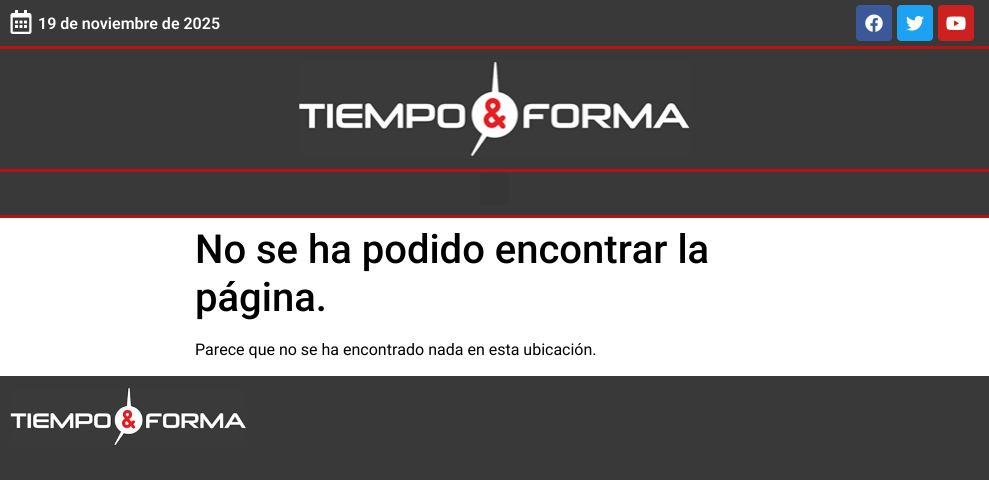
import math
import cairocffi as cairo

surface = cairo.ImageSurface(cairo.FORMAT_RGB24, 989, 480)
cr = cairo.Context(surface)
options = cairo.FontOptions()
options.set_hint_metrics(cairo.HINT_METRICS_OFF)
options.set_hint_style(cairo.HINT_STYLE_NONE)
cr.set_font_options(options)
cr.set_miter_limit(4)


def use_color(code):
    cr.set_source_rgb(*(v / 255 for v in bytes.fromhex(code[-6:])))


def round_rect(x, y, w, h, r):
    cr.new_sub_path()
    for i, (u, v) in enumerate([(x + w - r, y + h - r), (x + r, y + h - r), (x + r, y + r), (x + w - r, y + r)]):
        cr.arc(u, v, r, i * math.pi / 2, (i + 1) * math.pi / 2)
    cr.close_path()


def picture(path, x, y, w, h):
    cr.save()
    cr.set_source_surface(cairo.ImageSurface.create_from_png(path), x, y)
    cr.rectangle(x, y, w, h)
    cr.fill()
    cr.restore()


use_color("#ffffff")
cr.paint()
use_color("#383938")
cr.rectangle(0, 0, 989, 46)
cr.fill()
picture("img1.png", 10, 10, 22, 24)
cr.select_font_face("Roboto SemiBold")
cr.set_font_size(16)
use_color("#ffffff")
cr.move_to(38, 29)
cr.show_text("19 de noviembre de 2025")
use_color("#3b5998")
round_rect(856, 5, 36, 36, 4)
cr.fill()
picture("img2.png", 865, 14, 18, 18)
use_color("#1da1f2")
round_rect(897, 5, 36, 36, 4)
cr.fill()
picture("img3.png", 906, 15, 18, 16)
use_color("#cd201f")
round_rect(938, 5, 36, 36, 4)
cr.fill()
picture("img4.png", 946, 16, 20, 14)
use_color("#383938")
cr.rectangle(0, 49, 989, 120)
cr.fill()
use_color("#bd1111")
cr.rectangle(0, 46, 989, 3)
cr.fill()
picture("img5.png", 298, 60, 392, 97)
use_color("#383938")
cr.rectangle(0, 172, 989, 43)
cr.fill()
use_color("#bd1111")
cr.rectangle(0, 169, 989, 3)
cr.fill()
cr.rectangle(0, 215, 989, 3)
cr.fill()
use_color("#353635")
round_rect(480, 172, 29, 33, 3)
cr.fill()
cr.select_font_face("Roboto Medium")
cr.set_font_size(40)
use_color("#000000")
cr.move_to(195, 263)
cr.show_text("No se ha podido encontrar la")
cr.move_to(195, 311)
cr.show_text("página.")
cr.select_font_face("Roboto")
cr.set_font_size(16)
cr.move_to(195, 355)
cr.show_text("Parece que no se ha encontrado nada en esta ubicación.")
use_color("#383938")
cr.rectangle(0, 376, 989, 104)
cr.fill()
picture("img6.png", 10, 388, 236, 58)
surface.write_to_png("result.png")
